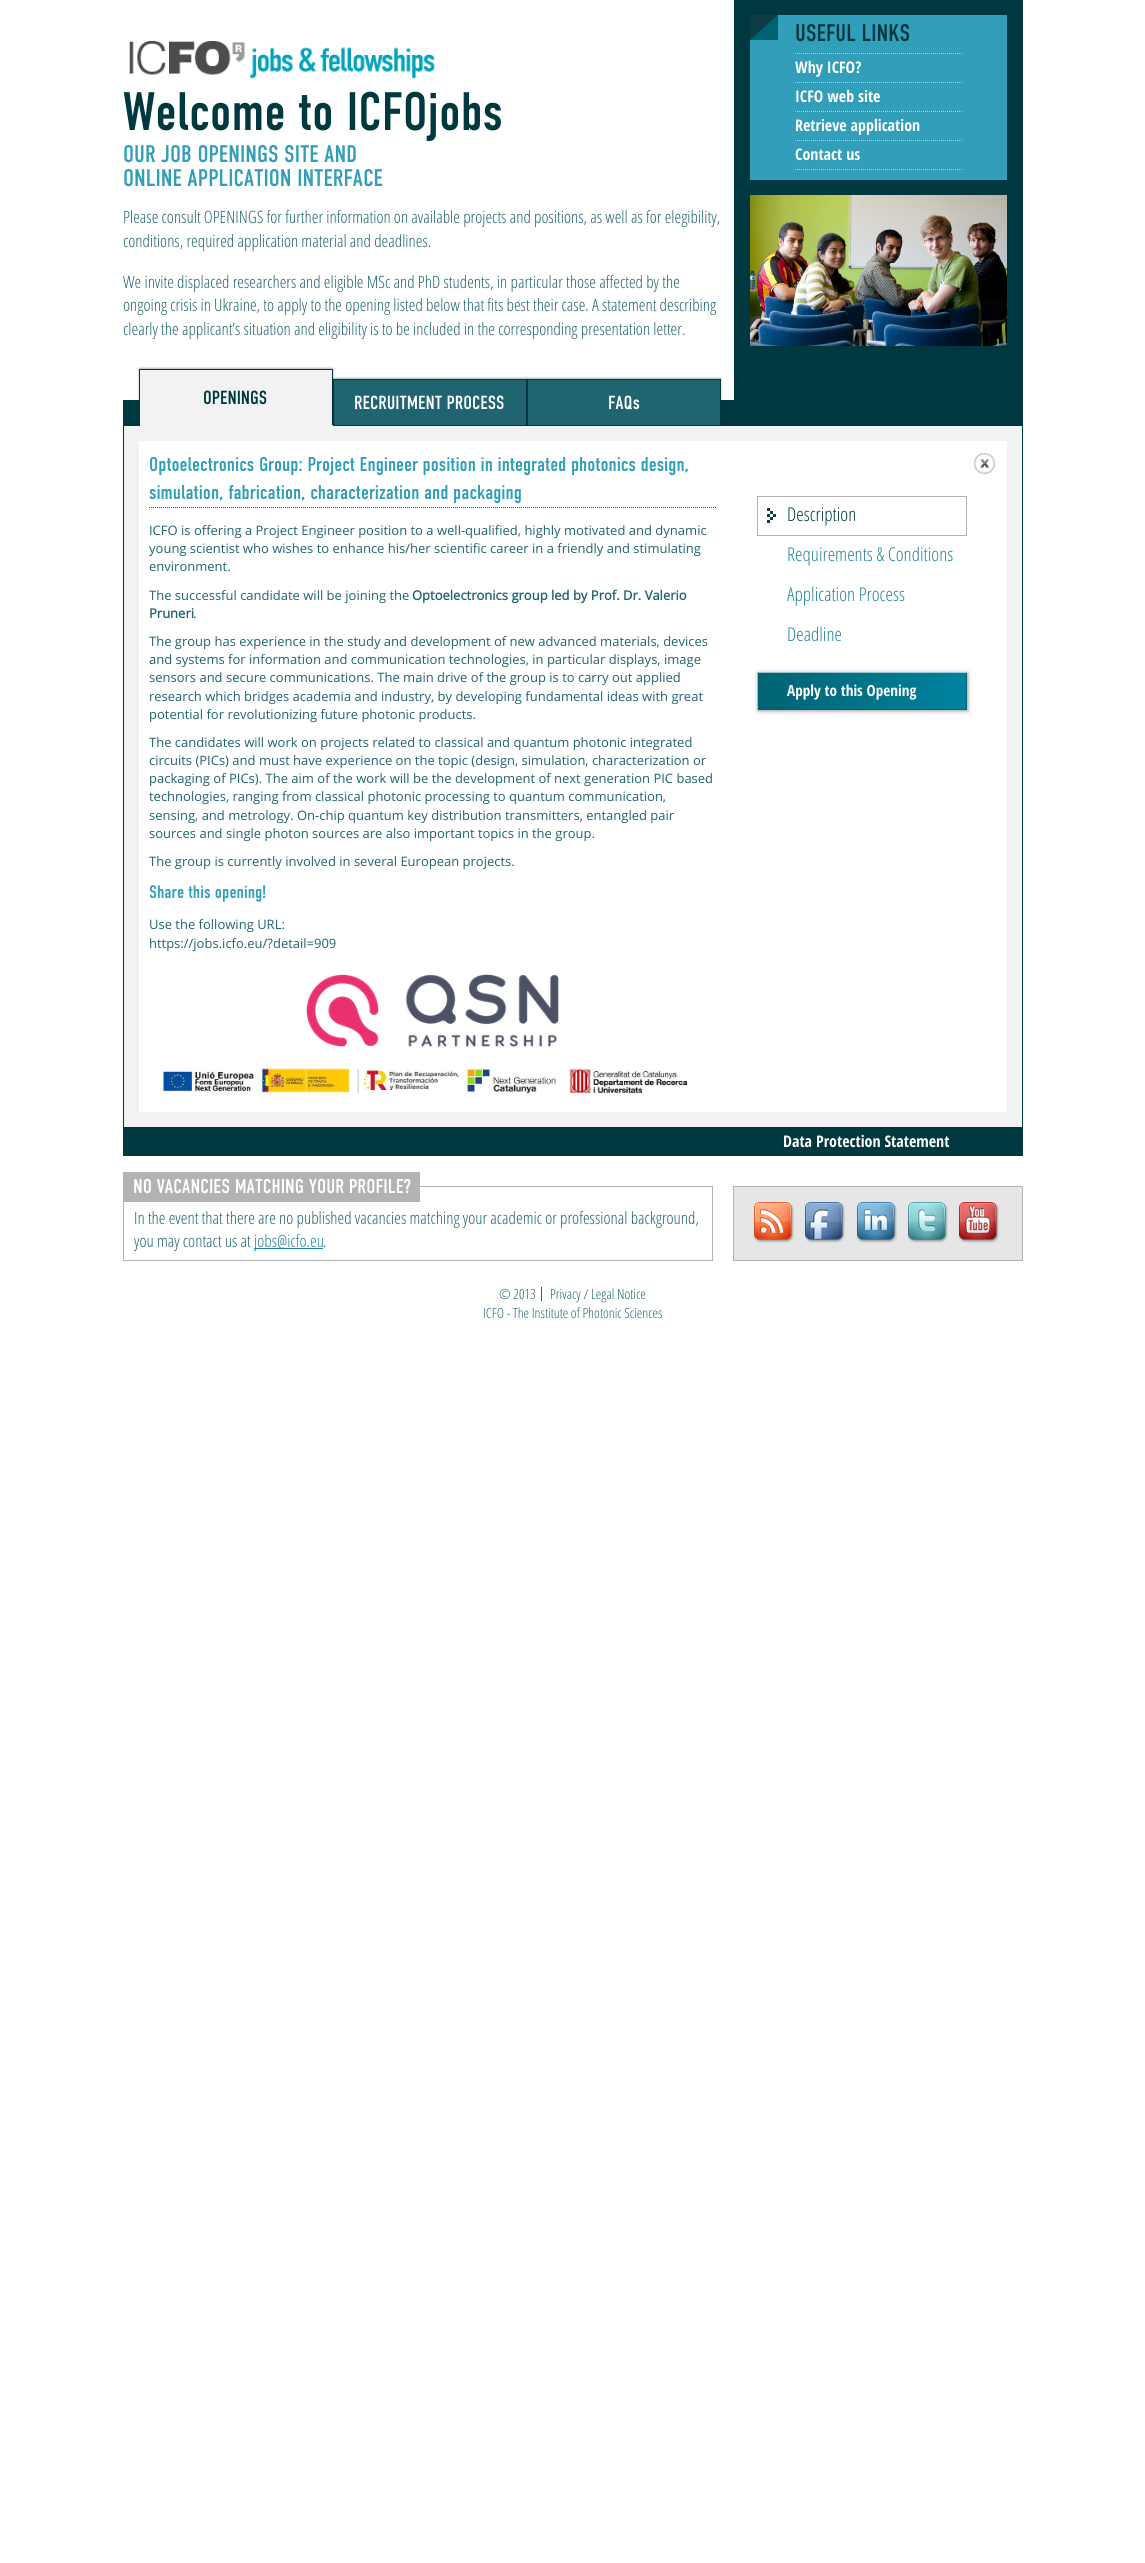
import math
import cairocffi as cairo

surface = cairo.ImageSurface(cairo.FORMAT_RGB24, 1145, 2563)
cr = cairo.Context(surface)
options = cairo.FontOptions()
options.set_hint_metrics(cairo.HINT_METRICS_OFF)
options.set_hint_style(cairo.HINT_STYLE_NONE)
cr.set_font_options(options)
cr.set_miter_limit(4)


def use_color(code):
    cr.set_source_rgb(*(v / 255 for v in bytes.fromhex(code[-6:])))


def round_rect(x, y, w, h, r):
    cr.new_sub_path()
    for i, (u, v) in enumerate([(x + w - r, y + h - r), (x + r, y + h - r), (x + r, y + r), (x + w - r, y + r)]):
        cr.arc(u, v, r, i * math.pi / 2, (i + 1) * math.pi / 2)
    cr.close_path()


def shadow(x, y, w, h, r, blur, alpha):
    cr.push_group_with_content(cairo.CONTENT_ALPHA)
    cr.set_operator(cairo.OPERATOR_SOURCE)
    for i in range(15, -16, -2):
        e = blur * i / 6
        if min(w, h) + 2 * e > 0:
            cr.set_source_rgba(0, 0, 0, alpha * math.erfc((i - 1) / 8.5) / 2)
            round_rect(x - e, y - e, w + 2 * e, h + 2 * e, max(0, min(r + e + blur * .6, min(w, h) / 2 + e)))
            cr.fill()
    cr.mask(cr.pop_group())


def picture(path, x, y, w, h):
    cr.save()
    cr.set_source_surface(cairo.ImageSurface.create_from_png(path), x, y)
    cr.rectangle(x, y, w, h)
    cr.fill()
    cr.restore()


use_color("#ffffff")
cr.paint()
use_color("#003840")
cr.rectangle(123, 0, 900, 425)
cr.fill()
use_color("#ffffff")
cr.rectangle(123, 0, 611, 400)
cr.fill()
picture("img1.png", 129, 41, 306, 38)
cr.select_font_face("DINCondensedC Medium")
cr.set_font_size(54)
use_color("#003840")
cr.move_to(123, 130)
cr.show_text("Welcome to ICFOjobs")
cr.set_font_size(24)
use_color("#319fb9")
cr.move_to(123, 162)
cr.show_text("OUR JOB OPENINGS SITE AND")
cr.move_to(123, 186)
cr.show_text("ONLINE APPLICATION INTERFACE")
cr.select_font_face("Open Sans Light")
cr.set_font_size(17)
use_color("#206371")
cr.move_to(123, 223)
cr.show_text("Please consult OPENINGS for further information on available projects and positions, as well as for elegibility,")
cr.move_to(123, 247)
cr.show_text("conditions, required application material and deadlines.")
cr.move_to(123, 288)
cr.show_text("We invite displaced researchers and eligible MSc and PhD students, in particular those affected by the")
cr.move_to(123, 311)
cr.show_text("ongoing crisis in Ukraine, to apply to the opening listed below that fits best their case. A statement describing")
cr.move_to(123, 335)
cr.show_text("clearly the applicant’s situation and eligibility is to be included in the corresponding presentation letter.")
use_color("#319fb9")
cr.rectangle(750, 15, 257, 165)
cr.fill()
picture("img2.png", 750, 15, 28, 25)
cr.select_font_face("DINCondensedC Medium")
cr.set_font_size(24)
use_color("#003840")
cr.move_to(795, 41)
cr.show_text("USEFUL LINKS")
cr.new_path()
cr.move_to(795, 53.5)
cr.line_to(962, 53.5)
use_color("#cccccc")
cr.set_line_width(1)
cr.set_dash([1, 1])
cr.stroke()
cr.select_font_face("Open Sans Condensed", cairo.FONT_SLANT_NORMAL, cairo.FONT_WEIGHT_BOLD)
cr.set_font_size(16)
use_color("#ffffff")
cr.move_to(795, 73)
cr.show_text("Why ICFO?")
cr.new_path()
cr.move_to(795, 82.5)
cr.line_to(962, 82.5)
use_color("#cccccc")
cr.stroke()
use_color("#ffffff")
cr.move_to(795, 102)
cr.show_text("ICFO web site")
cr.new_path()
cr.move_to(795, 111.5)
cr.line_to(962, 111.5)
use_color("#cccccc")
cr.stroke()
use_color("#ffffff")
cr.move_to(795, 131)
cr.show_text("Retrieve application")
cr.new_path()
cr.move_to(795, 140.5)
cr.line_to(962, 140.5)
use_color("#cccccc")
cr.stroke()
cr.new_path()
cr.move_to(795, 169.5)
cr.line_to(962, 169.5)
cr.stroke()
use_color("#ffffff")
cr.move_to(795, 160)
cr.show_text("Contact us")
picture("img3.png", 750, 195, 257, 151)
cr.rectangle(123.5, 425.5, 899, 730)
use_color("#003840")
cr.set_dash([])
cr.stroke()
use_color("#000000")
shadow(139, 368, 194, 57, 0, 1, 0.3)
use_color("#f2f2f2")
cr.rectangle(140, 370, 192, 55)
cr.fill()
use_color("#003840")
cr.rectangle(139, 369, 194, 1)
cr.fill()
cr.rectangle(332, 369, 1, 57)
cr.fill()
use_color("#f2f2f2")
cr.rectangle(139, 425, 194, 1)
cr.fill()
use_color("#003840")
cr.rectangle(139, 369, 1, 57)
cr.fill()
cr.select_font_face("DINCondensedC Medium")
cr.set_font_size(19)
cr.move_to(203, 404)
cr.show_text("OPENINGS")
use_color("#000000")
shadow(333, 378, 194, 47, 0, 1, 0.3)
use_color("#206371")
cr.rectangle(333.5, 379.5, 193, 46)
cr.fill_preserve()
use_color("#003840")
cr.stroke()
use_color("#ffffff")
cr.move_to(354, 409)
cr.show_text("RECRUITMENT PROCESS")
use_color("#000000")
shadow(527, 378, 194, 47, 0, 1, 0.3)
use_color("#206371")
cr.rectangle(527.5, 379.5, 193, 46)
cr.fill_preserve()
use_color("#003840")
cr.stroke()
use_color("#ffffff")
cr.move_to(608, 409)
cr.show_text("FAQs")
use_color("#f2f2f2")
cr.rectangle(124, 426, 898, 701)
cr.fill()
use_color("#ffffff")
cr.rectangle(139, 441, 868, 671)
cr.fill()
cr.new_path()
cr.move_to(149, 507.5)
cr.line_to(717, 507.5)
use_color("#206371")
cr.set_dash([1, 1])
cr.stroke()
cr.set_font_size(20)
use_color("#319fb9")
cr.move_to(149, 471)
cr.show_text("Optoelectronics Group: Project Engineer position in integrated photonics design,")
cr.move_to(149, 499)
cr.show_text("simulation, fabrication, characterization and packaging")
cr.select_font_face("Open Sans")
cr.set_font_size(13)
use_color("#206371")
cr.move_to(149, 535)
cr.show_text("ICFO is offering a Project Engineer position to a well-qualified, highly motivated and dynamic")
cr.move_to(149, 553)
cr.show_text("young scientist who wishes to enhance his/her scientific career in a friendly and stimulating")
cr.move_to(149, 571)
cr.show_text("environment.")
cr.move_to(149, 600)
cr.show_text("The successful candidate will be joining the")
cr.select_font_face("Open Sans", cairo.FONT_SLANT_NORMAL, cairo.FONT_WEIGHT_BOLD)
cr.move_to(412, 600)
cr.show_text("Optoelectronics group led by Prof. Dr. Valerio")
cr.move_to(149, 618)
cr.show_text("Pruneri")
cr.select_font_face("Open Sans")
cr.move_to(193, 618)
cr.show_text(".")
cr.move_to(149, 646)
cr.show_text("The group has experience in the study and development of new advanced materials, devices")
cr.move_to(149, 664)
cr.show_text("and systems for information and communication technologies, in particular displays, image")
cr.move_to(149, 682)
cr.show_text("sensors and secure communications. The main drive of the group is to carry out applied")
cr.move_to(149, 701)
cr.show_text("research which bridges academia and industry, by developing fundamental ideas with great")
cr.move_to(149, 719)
cr.show_text("potential for revolutionizing future photonic products.")
cr.move_to(149, 747)
cr.show_text("The candidates will work on projects related to classical and quantum photonic integrated")
cr.move_to(149, 765)
cr.show_text("circuits (PICs) and must have experience on the topic (design, simulation, characterization or")
cr.move_to(149, 783)
cr.show_text("packaging of PICs). The aim of the work will be the development of next generation PIC based")
cr.move_to(149, 801)
cr.show_text("technologies, ranging from classical photonic processing to quantum communication,")
cr.move_to(149, 820)
cr.show_text("sensing, and metrology. On-chip quantum key distribution transmitters, entangled pair")
cr.move_to(149, 838)
cr.show_text("sources and single photon sources are also important topics in the group.")
cr.move_to(149, 866)
cr.show_text("The group is currently involved in several European projects.")
cr.select_font_face("DINCondensedC Medium")
cr.set_font_size(18)
use_color("#319fb9")
cr.move_to(149, 898)
cr.show_text("Share this opening!")
cr.select_font_face("Open Sans")
cr.set_font_size(13)
use_color("#206371")
cr.move_to(149, 929)
cr.show_text("Use the following URL:")
cr.move_to(149, 948)
cr.show_text("https://jobs.icfo.eu/?detail=909")
picture("img4.png", 306, 974, 253, 73)
picture("img5.png", 160, 1063, 528, 33)
cr.rectangle(757.5, 496.5, 209, 39)
use_color("#b3b3b3")
cr.set_dash([])
cr.stroke()
picture("img6.png", 767, 508, 9, 15)
cr.select_font_face("Open Sans Light")
cr.set_font_size(19)
use_color("#003840")
cr.move_to(787, 521)
cr.show_text("Description")
use_color("#23829e")
cr.move_to(787, 561)
cr.show_text("Requirements & Conditions")
cr.move_to(787, 601)
cr.show_text("Application Process")
cr.move_to(787, 641)
cr.show_text("Deadline")
use_color("#000000")
shadow(758, 673, 210, 38, 0, 2, 0.4)
gradient = cairo.LinearGradient(757, 691, 967, 691)
gradient.add_color_stop_rgba(0, 0, 0.388, 0.447, 1)
gradient.add_color_stop_rgba(1, 0, 0.514, 0.627, 1)
cr.set_source(gradient)
cr.rectangle(757, 672, 210, 38)
cr.fill()
cr.save()
cr.rectangle(757, 672, 210, 38)
cr.clip()
cr.set_source_rgba(0, 0.353, 0.353, 0.6)
cr.set_fill_rule(cairo.FILL_RULE_EVEN_ODD)
cr.new_path()
cr.move_to(658, 573)
cr.line_to(1066, 573)
cr.line_to(1066, 809)
cr.line_to(658, 809)
cr.close_path()
cr.move_to(756, 671)
cr.line_to(966, 671)
cr.line_to(966, 709)
cr.line_to(756, 709)
cr.close_path()
cr.fill()
cr.set_source_rgba(1, 1, 1, 0.6)
cr.new_path()
cr.move_to(658, 573)
cr.line_to(1066, 573)
cr.line_to(1066, 809)
cr.line_to(658, 809)
cr.close_path()
cr.move_to(758, 673)
cr.line_to(968, 673)
cr.line_to(968, 711)
cr.line_to(758, 711)
cr.close_path()
cr.fill()
cr.restore()
cr.select_font_face("Open Sans Condensed", cairo.FONT_SLANT_NORMAL, cairo.FONT_WEIGHT_BOLD)
cr.set_font_size(15.25)
use_color("#ffffff")
cr.move_to(787, 696)
cr.show_text("Apply to this Opening")
picture("img7.png", 974, 453, 21, 22)
use_color("#003840")
cr.rectangle(124, 1127, 898, 28)
cr.fill()
cr.set_font_size(16)
use_color("#ffffff")
cr.move_to(783, 1147)
cr.show_text("Data Protection Statement")
cr.rectangle(123.5, 1186.5, 589, 74)
use_color("#b3b3b3")
cr.stroke()
cr.rectangle(123, 1172, 297, 30)
cr.fill()
cr.select_font_face("DINCondensedC Medium")
cr.set_font_size(20)
use_color("#ffffff")
cr.move_to(133, 1193)
cr.show_text("NO VACANCIES MATCHING YOUR PROFILE?")
cr.select_font_face("Open Sans Light")
cr.set_font_size(17)
use_color("#206371")
cr.move_to(134, 1224)
cr.show_text("In the event that there are no published vacancies matching your academic or professional background,")
cr.move_to(134, 1247)
cr.show_text("you may contact us at")
use_color("#23829e")
cr.rectangle(254, 1248, 69, 1)
cr.fill()
cr.move_to(254, 1247)
cr.show_text("jobs@icfo.eu")
use_color("#206371")
cr.move_to(323, 1247)
cr.show_text(".")
use_color("#e6e6e6")
cr.rectangle(733.5, 1186.5, 289, 74)
cr.fill_preserve()
use_color("#b3b3b3")
cr.stroke()
picture("img8.png", 753, 1202, 41, 41)
picture("img9.png", 804, 1202, 41, 41)
picture("img10.png", 856, 1202, 41, 41)
picture("img11.png", 907, 1202, 41, 41)
picture("img12.png", 958, 1202, 41, 41)
use_color("#206371")
cr.rectangle(541, 1287, 1, 14)
cr.fill()
cr.set_font_size(14)
cr.move_to(499, 1299)
cr.show_text("© 2013")
cr.move_to(550, 1299)
cr.show_text("Privacy / Legal Notice")
cr.move_to(483, 1318)
cr.show_text("ICFO - The Institute of Photonic Sciences")
surface.write_to_png("result.png")
